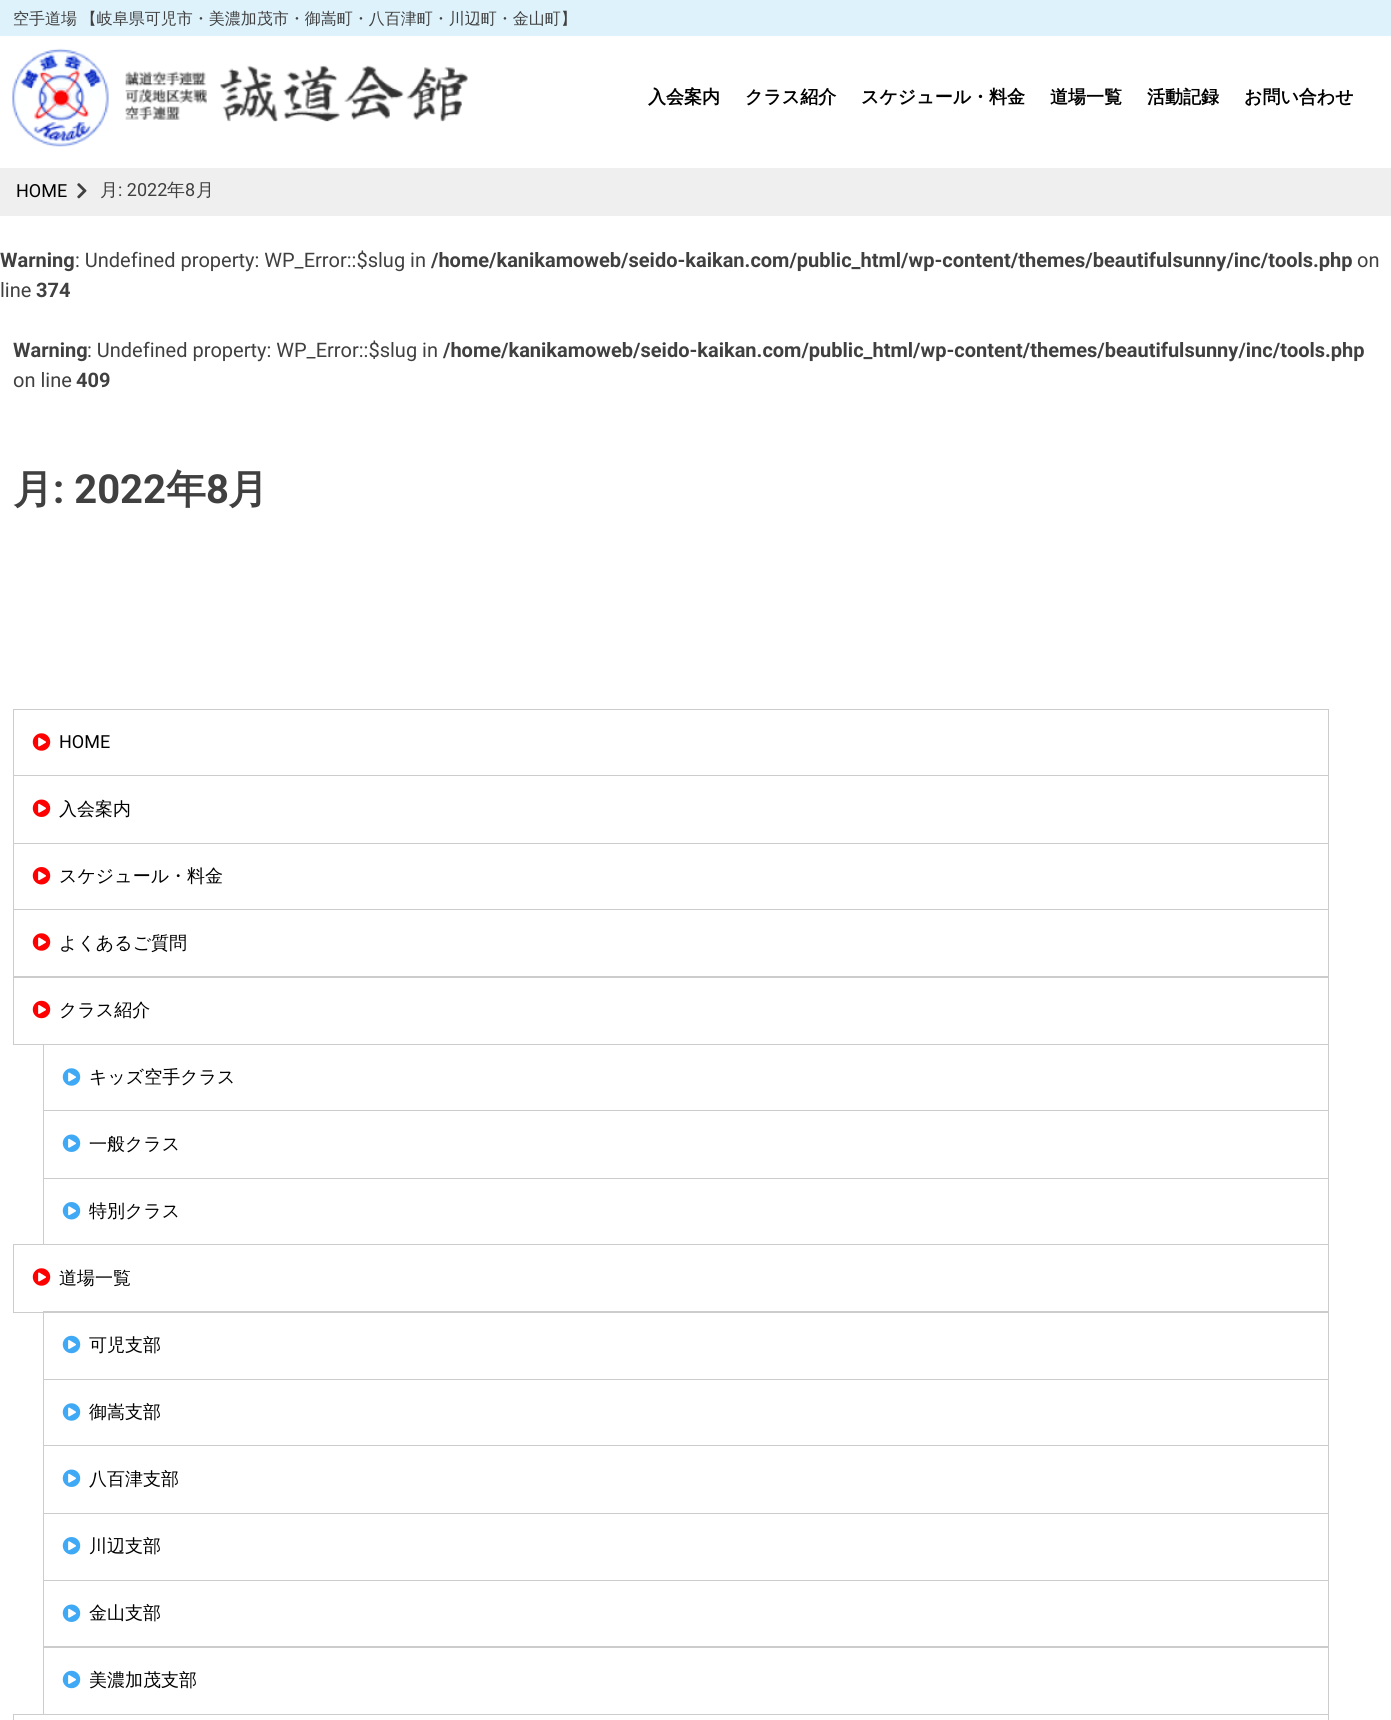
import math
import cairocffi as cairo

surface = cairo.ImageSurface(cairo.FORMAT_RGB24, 1391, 1720)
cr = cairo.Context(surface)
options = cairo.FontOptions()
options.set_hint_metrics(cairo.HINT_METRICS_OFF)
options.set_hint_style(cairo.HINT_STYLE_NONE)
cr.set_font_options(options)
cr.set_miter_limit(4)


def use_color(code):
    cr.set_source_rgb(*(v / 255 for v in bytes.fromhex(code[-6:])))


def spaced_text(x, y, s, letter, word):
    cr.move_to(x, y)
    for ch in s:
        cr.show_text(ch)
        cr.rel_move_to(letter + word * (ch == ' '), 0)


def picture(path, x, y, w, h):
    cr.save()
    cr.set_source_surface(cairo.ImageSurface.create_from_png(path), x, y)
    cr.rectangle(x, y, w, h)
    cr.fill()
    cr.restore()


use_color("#ffffff")
cr.paint()
use_color("#def2fb")
cr.rectangle(0, 0, 1391, 36)
cr.fill()
cr.select_font_face("WenQuanYi Zen Hei Medium")
cr.set_font_size(16)
use_color("#404040")
spaced_text(13, 24, "空手道場 【岐阜県可児市・美濃加茂市・御嵩町・八百津町・川辺町・金山町】", 0, -1)
picture("img1.png", 12, 48, 456, 99)
cr.select_font_face("WenQuanYi Zen Hei", cairo.FONT_SLANT_NORMAL, cairo.FONT_WEIGHT_BOLD)
cr.set_font_size(18)
use_color("#000000")
cr.move_to(648, 103)
cr.show_text("入会案内")
cr.move_to(745, 103)
cr.show_text("クラス紹介")
cr.move_to(861, 103)
cr.show_text("スケジュール・料金")
cr.move_to(1050, 103)
cr.show_text("道場一覧")
cr.move_to(1147, 103)
cr.show_text("活動記録")
cr.move_to(1244, 103)
cr.show_text("お問い合わせ")
use_color("#efefef")
cr.rectangle(0, 168, 1391, 48)
cr.fill()
cr.select_font_face("Roboto")
use_color("#000000")
cr.move_to(16, 197)
cr.show_text("HOME")
picture("img2.png", 77, 183, 10, 16)
cr.select_font_face("WenQuanYi Zen Hei Medium")
use_color("#404040")
cr.move_to(100, 196)
cr.show_text("月")
cr.select_font_face("Roboto")
cr.move_to(118, 196)
cr.show_text(": 2022")
cr.select_font_face("WenQuanYi Zen Hei Medium")
cr.move_to(167, 196)
cr.show_text("年")
cr.select_font_face("Roboto")
cr.move_to(185, 196)
cr.show_text("8")
cr.select_font_face("WenQuanYi Zen Hei Medium")
cr.move_to(196, 196)
cr.show_text("月")
cr.select_font_face("Roboto", cairo.FONT_SLANT_NORMAL, cairo.FONT_WEIGHT_BOLD)
cr.set_font_size(20)
cr.move_to(0, 267)
cr.show_text("Warning")
cr.select_font_face("Roboto")
cr.move_to(75, 267)
cr.show_text(": Undefined property: WP_Error::$slug in")
cr.select_font_face("Roboto", cairo.FONT_SLANT_NORMAL, cairo.FONT_WEIGHT_BOLD)
cr.move_to(431, 267)
cr.show_text("/home/kanikamoweb/seido-kaikan.com/public_html/wp-content/themes/beautifulsunny/inc/tools.php")
cr.select_font_face("Roboto")
cr.move_to(1357, 267)
cr.show_text("on")
cr.move_to(0, 297)
cr.show_text("line")
cr.select_font_face("Roboto", cairo.FONT_SLANT_NORMAL, cairo.FONT_WEIGHT_BOLD)
cr.move_to(36, 297)
cr.show_text("374")
cr.move_to(13, 357)
cr.show_text("Warning")
cr.select_font_face("Roboto")
cr.move_to(87, 357)
cr.show_text(": Undefined property: WP_Error::$slug in")
cr.select_font_face("Roboto", cairo.FONT_SLANT_NORMAL, cairo.FONT_WEIGHT_BOLD)
cr.move_to(443, 357)
cr.show_text("/home/kanikamoweb/seido-kaikan.com/public_html/wp-content/themes/beautifulsunny/inc/tools.php")
cr.select_font_face("Roboto")
cr.move_to(13, 387)
cr.show_text("on line")
cr.select_font_face("Roboto", cairo.FONT_SLANT_NORMAL, cairo.FONT_WEIGHT_BOLD)
cr.move_to(76, 387)
cr.show_text("409")
cr.select_font_face("WenQuanYi Zen Hei", cairo.FONT_SLANT_NORMAL, cairo.FONT_WEIGHT_BOLD)
cr.set_font_size(40)
cr.move_to(13, 503)
cr.show_text("月")
cr.select_font_face("Roboto", cairo.FONT_SLANT_NORMAL, cairo.FONT_WEIGHT_BOLD)
cr.move_to(53, 503)
cr.show_text(": 2022")
cr.select_font_face("WenQuanYi Zen Hei", cairo.FONT_SLANT_NORMAL, cairo.FONT_WEIGHT_BOLD)
cr.move_to(166, 503)
cr.show_text("年")
cr.select_font_face("Roboto", cairo.FONT_SLANT_NORMAL, cairo.FONT_WEIGHT_BOLD)
cr.move_to(206, 503)
cr.show_text("8")
cr.select_font_face("WenQuanYi Zen Hei", cairo.FONT_SLANT_NORMAL, cairo.FONT_WEIGHT_BOLD)
cr.move_to(228, 503)
cr.show_text("月")
cr.rectangle(13.5, 709.5, 1315, 66)
use_color("#cccccc")
cr.set_line_width(1)
cr.stroke()
picture("img3.png", 32, 733, 19, 18)
cr.select_font_face("Roboto")
cr.set_font_size(18)
use_color("#000000")
cr.move_to(59, 748)
cr.show_text("HOME")
cr.rectangle(13.5, 775.5, 1315, 68)
use_color("#cccccc")
cr.stroke()
picture("img4.png", 32, 799, 19, 18)
cr.select_font_face("WenQuanYi Zen Hei Medium")
use_color("#000000")
cr.move_to(59, 815)
cr.show_text("入会案内")
cr.rectangle(13.5, 843.5, 1315, 66)
use_color("#cccccc")
cr.stroke()
picture("img5.png", 32, 867, 19, 18)
use_color("#000000")
cr.move_to(59, 882)
cr.show_text("スケジュール・料金")
cr.rectangle(13.5, 909.5, 1315, 68)
use_color("#cccccc")
cr.stroke()
picture("img3.png", 32, 933, 19, 18)
use_color("#000000")
cr.move_to(59, 949)
cr.show_text("よくあるご質問")
cr.rectangle(13.5, 976.5, 1315, 68)
use_color("#cccccc")
cr.stroke()
picture("img6.png", 32, 1000, 19, 19)
use_color("#000000")
cr.move_to(59, 1016)
cr.show_text("クラス紹介")
cr.rectangle(43.5, 1044.5, 1285, 66)
use_color("#cccccc")
cr.stroke()
picture("img7.png", 62, 1068, 19, 18)
use_color("#000000")
cr.move_to(89, 1083)
cr.show_text("キッズ空手クラス")
cr.rectangle(43.5, 1110.5, 1285, 68)
use_color("#cccccc")
cr.stroke()
picture("img8.png", 62, 1134, 19, 18)
use_color("#000000")
cr.move_to(89, 1150)
cr.show_text("一般クラス")
cr.rectangle(43.5, 1178.5, 1285, 66)
use_color("#cccccc")
cr.stroke()
picture("img9.png", 62, 1202, 19, 18)
use_color("#000000")
cr.move_to(89, 1217)
cr.show_text("特別クラス")
cr.rectangle(13.5, 1244.5, 1315, 68)
use_color("#cccccc")
cr.stroke()
picture("img3.png", 32, 1268, 19, 18)
use_color("#000000")
cr.move_to(59, 1284)
cr.show_text("道場一覧")
cr.rectangle(43.5, 1311.5, 1285, 68)
use_color("#cccccc")
cr.stroke()
picture("img10.png", 62, 1335, 19, 19)
use_color("#000000")
cr.move_to(89, 1351)
cr.show_text("可児支部")
cr.rectangle(43.5, 1379.5, 1285, 66)
use_color("#cccccc")
cr.stroke()
picture("img7.png", 62, 1403, 19, 18)
use_color("#000000")
cr.move_to(89, 1418)
cr.show_text("御嵩支部")
cr.rectangle(43.5, 1445.5, 1285, 68)
use_color("#cccccc")
cr.stroke()
picture("img8.png", 62, 1469, 19, 18)
use_color("#000000")
cr.move_to(89, 1485)
cr.show_text("八百津支部")
cr.rectangle(43.5, 1513.5, 1285, 67)
use_color("#cccccc")
cr.stroke()
picture("img9.png", 62, 1537, 19, 18)
use_color("#000000")
cr.move_to(89, 1552)
cr.show_text("川辺支部")
cr.rectangle(43.5, 1580.5, 1285, 67)
use_color("#cccccc")
cr.stroke()
picture("img8.png", 62, 1604, 19, 18)
use_color("#000000")
cr.move_to(89, 1619)
cr.show_text("金山支部")
cr.rectangle(43.5, 1646.5, 1285, 68)
use_color("#cccccc")
cr.stroke()
picture("img10.png", 62, 1670, 19, 19)
use_color("#000000")
cr.move_to(89, 1686)
cr.show_text("美濃加茂支部")
cr.rectangle(13.5, 1714.5, 1315, 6)
use_color("#cccccc")
cr.stroke()
surface.write_to_png("result.png")
